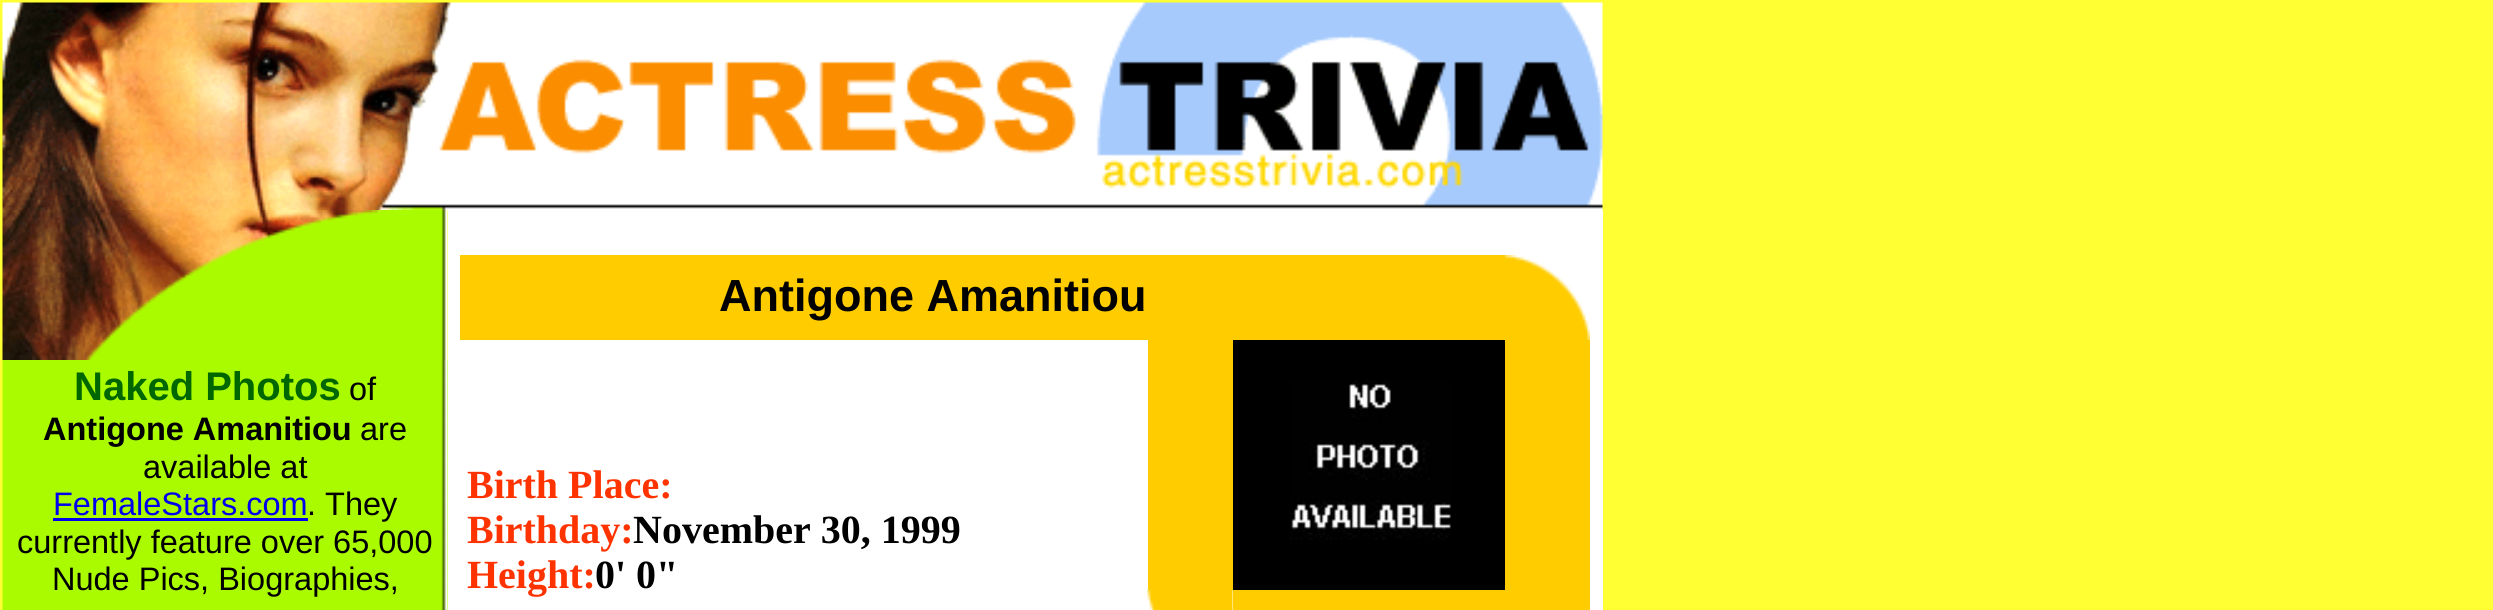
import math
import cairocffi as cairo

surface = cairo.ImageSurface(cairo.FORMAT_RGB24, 2493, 610)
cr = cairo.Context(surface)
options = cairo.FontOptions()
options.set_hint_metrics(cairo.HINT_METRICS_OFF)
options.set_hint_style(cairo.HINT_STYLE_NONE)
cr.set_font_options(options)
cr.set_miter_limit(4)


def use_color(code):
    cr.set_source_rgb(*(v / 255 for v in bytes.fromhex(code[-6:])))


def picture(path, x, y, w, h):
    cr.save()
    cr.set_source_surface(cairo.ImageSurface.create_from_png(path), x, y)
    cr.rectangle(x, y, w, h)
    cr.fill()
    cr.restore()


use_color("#ffff33")
cr.paint()
picture("img1.png", 2, 2, 1601, 208)
use_color("#abfb00")
cr.rectangle(447, 360, 1, 250)
cr.fill()
picture("img2.png", 2, 360, 446, 250)
cr.select_font_face("Liberation Sans", cairo.FONT_SLANT_NORMAL, cairo.FONT_WEIGHT_BOLD)
cr.set_font_size(40)
use_color("#006600")
cr.move_to(74, 400)
cr.show_text("Naked Photos")
cr.select_font_face("Liberation Sans")
cr.set_font_size(32.5)
use_color("#000000")
cr.move_to(349, 400)
cr.show_text("of")
cr.select_font_face("Liberation Sans", cairo.FONT_SLANT_NORMAL, cairo.FONT_WEIGHT_BOLD)
cr.move_to(43, 440)
cr.show_text("Antigone Amanitiou")
cr.select_font_face("Liberation Sans")
cr.move_to(360, 440)
cr.show_text("are")
cr.move_to(143, 478)
cr.show_text("available at")
use_color("#0000ee")
cr.move_to(53, 515)
cr.show_text("FemaleStars.com")
use_color("#000000")
cr.move_to(307, 515)
cr.show_text(". They")
use_color("#0000ee")
cr.rectangle(53, 518, 255, 3)
cr.fill()
use_color("#000000")
cr.move_to(17, 553)
cr.show_text("currently feature over 65,000")
cr.move_to(52, 590)
cr.show_text("Nude Pics, Biographies,")
picture("img3.png", 2, 210, 446, 150)
use_color("#ffffff")
cr.rectangle(448, 210, 1155, 400)
cr.fill()
use_color("#ffcc00")
cr.rectangle(460, 255, 1045, 85)
cr.fill()
cr.select_font_face("Liberation Sans", cairo.FONT_SLANT_NORMAL, cairo.FONT_WEIGHT_BOLD)
cr.set_font_size(45)
use_color("#000000")
cr.move_to(719, 311)
cr.show_text("Antigone Amanitiou")
picture("img4.png", 1505, 255, 85, 85)
cr.select_font_face("Liberation Serif", cairo.FONT_SLANT_NORMAL, cairo.FONT_WEIGHT_BOLD)
cr.set_font_size(40)
use_color("#ff3300")
cr.move_to(467, 498)
cr.show_text("Birth Place:")
cr.move_to(467, 543)
cr.show_text("Birthday:")
use_color("#000000")
cr.move_to(633, 543)
cr.show_text("November 30, 1999")
use_color("#ff3300")
cr.move_to(467, 588)
cr.show_text("Height:")
use_color("#000000")
cr.move_to(595, 588)
cr.show_text("0' 0\"")
use_color("#ffcc00")
cr.rectangle(1148, 340, 85, 250)
cr.fill()
use_color("#000000")
cr.rectangle(1233, 340, 272, 250)
cr.fill()
picture("img5.png", 1290, 380, 161, 160)
use_color("#ffcc00")
cr.rectangle(1505, 340, 85, 250)
cr.fill()
picture("img6.png", 1147, 590, 86, 20)
cr.rectangle(1233, 590, 357, 20)
cr.fill()
surface.write_to_png("result.png")
